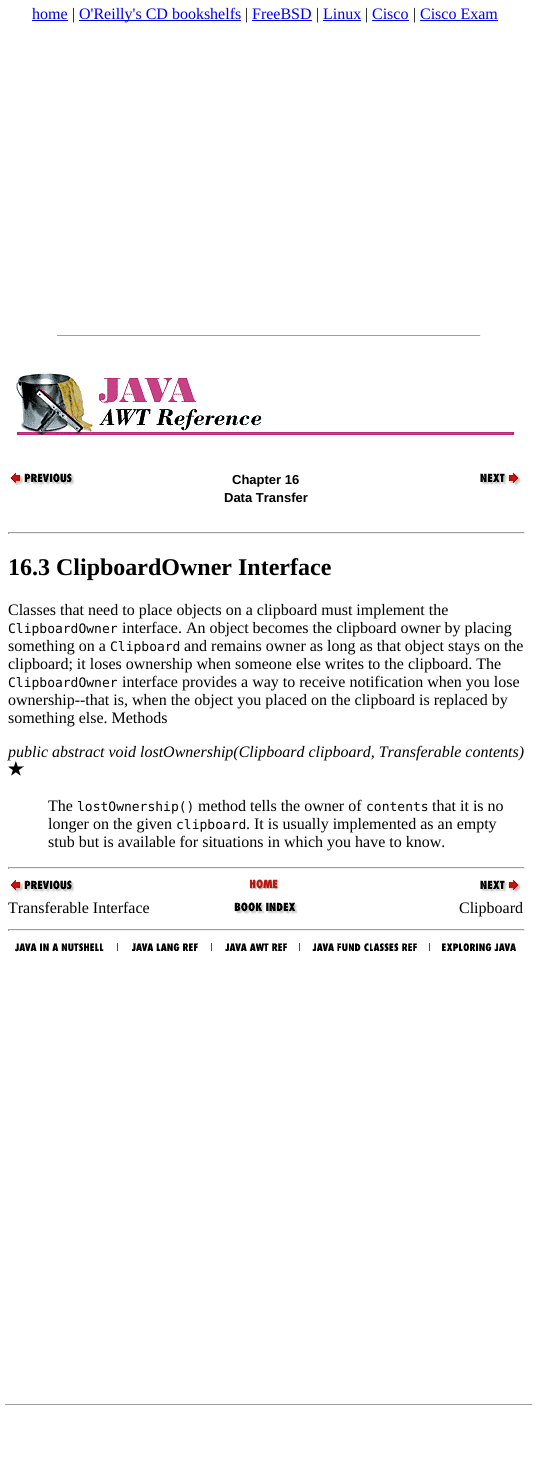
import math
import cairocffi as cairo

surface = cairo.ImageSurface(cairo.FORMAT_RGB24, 538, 1475)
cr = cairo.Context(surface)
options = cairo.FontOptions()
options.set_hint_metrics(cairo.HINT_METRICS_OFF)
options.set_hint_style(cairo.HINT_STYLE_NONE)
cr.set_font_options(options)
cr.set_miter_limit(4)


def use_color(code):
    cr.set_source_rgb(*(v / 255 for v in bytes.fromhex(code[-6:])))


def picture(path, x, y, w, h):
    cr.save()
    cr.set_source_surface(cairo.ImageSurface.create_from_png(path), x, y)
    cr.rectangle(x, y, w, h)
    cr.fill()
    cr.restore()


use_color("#ffffff")
cr.paint()
cr.select_font_face("Liberation Serif")
cr.set_font_size(16)
use_color("#0000ee")
cr.move_to(32, 19)
cr.show_text("home")
cr.rectangle(32, 20, 36, 1)
cr.fill()
use_color("#000000")
cr.move_to(72, 19)
cr.show_text("|")
use_color("#0000ee")
cr.rectangle(79, 20, 162, 1)
cr.fill()
cr.move_to(79, 19)
cr.show_text("O'Reilly's CD bookshelfs")
use_color("#000000")
cr.move_to(245, 19)
cr.show_text("|")
use_color("#0000ee")
cr.move_to(252, 19)
cr.show_text("FreeBSD")
cr.rectangle(252, 20, 60, 1)
cr.fill()
use_color("#000000")
cr.move_to(316, 19)
cr.show_text("|")
use_color("#0000ee")
cr.move_to(323, 19)
cr.show_text("Linux")
cr.rectangle(323, 20, 38, 1)
cr.fill()
use_color("#000000")
cr.move_to(365, 19)
cr.show_text("|")
use_color("#0000ee")
cr.move_to(372, 19)
cr.show_text("Cisco")
cr.rectangle(372, 20, 37, 1)
cr.fill()
use_color("#000000")
cr.move_to(413, 19)
cr.show_text("|")
use_color("#0000ee")
cr.move_to(420, 19)
cr.show_text("Cisco Exam")
cr.rectangle(420, 20, 78, 1)
cr.fill()
use_color("#9f9f9f")
cr.rectangle(57, 335, 424, 1)
cr.fill()
use_color("#eeeeee")
cr.rectangle(480, 335, 1, 1)
cr.fill()
picture("img1.png", 16, 373, 498, 62)
picture("img2.png", 10, 472, 65, 15)
cr.select_font_face("Liberation Sans", cairo.FONT_SLANT_NORMAL, cairo.FONT_WEIGHT_BOLD)
cr.set_font_size(13)
use_color("#000000")
cr.move_to(232, 484)
cr.show_text("Chapter 16")
cr.move_to(224, 502)
cr.show_text("Data Transfer")
picture("img3.png", 480, 472, 42, 15)
use_color("#9f9f9f")
cr.rectangle(8, 532, 517, 1)
cr.fill()
use_color("#eeeeee")
cr.rectangle(524, 532, 1, 2)
cr.fill()
cr.rectangle(8, 533, 517, 1)
cr.fill()
use_color("#9f9f9f")
cr.rectangle(8, 532, 1, 2)
cr.fill()
cr.select_font_face("Liberation Serif", cairo.FONT_SLANT_NORMAL, cairo.FONT_WEIGHT_BOLD)
cr.set_font_size(24)
use_color("#000000")
cr.move_to(8, 575)
cr.show_text("16.3 ClipboardOwner Interface")
cr.select_font_face("Liberation Serif")
cr.set_font_size(16)
cr.move_to(8, 615)
cr.show_text("Classes that need to place objects on a clipboard must implement the")
cr.select_font_face("DejaVu Sans Mono")
cr.set_font_size(13)
cr.move_to(8, 633)
cr.show_text("ClipboardOwner")
cr.select_font_face("Liberation Serif")
cr.set_font_size(16)
cr.move_to(122, 633)
cr.show_text("interface. An object becomes the clipboard owner by placing")
cr.move_to(8, 651)
cr.show_text("something on a")
cr.select_font_face("DejaVu Sans Mono")
cr.set_font_size(13)
cr.move_to(110, 651)
cr.show_text("Clipboard")
cr.select_font_face("Liberation Serif")
cr.set_font_size(16)
cr.move_to(184, 651)
cr.show_text("and remains owner as long as that object stays on the")
cr.move_to(8, 669)
cr.show_text("clipboard; it loses ownership when someone else writes to the clipboard. The")
cr.select_font_face("DejaVu Sans Mono")
cr.set_font_size(13)
cr.move_to(8, 687)
cr.show_text("ClipboardOwner")
cr.select_font_face("Liberation Serif")
cr.set_font_size(16)
cr.move_to(122, 687)
cr.show_text("interface provides a way to receive notification when you lose")
cr.move_to(8, 705)
cr.show_text("ownership--that is, when the object you placed on the clipboard is replaced by")
cr.move_to(8, 723)
cr.show_text("something else. Methods")
cr.select_font_face("Liberation Serif", cairo.FONT_SLANT_ITALIC)
cr.move_to(8, 757)
cr.show_text("public abstract void lostOwnership(Clipboard clipboard, Transferable contents)")
picture("img4.png", 8, 761, 16, 15)
cr.select_font_face("Liberation Serif")
cr.move_to(48, 811)
cr.show_text("The")
cr.select_font_face("DejaVu Sans Mono")
cr.set_font_size(13)
cr.move_to(77, 811)
cr.show_text("lostOwnership()")
cr.select_font_face("Liberation Serif")
cr.set_font_size(16)
cr.move_to(198, 811)
cr.show_text("method tells the owner of")
cr.select_font_face("DejaVu Sans Mono")
cr.set_font_size(13)
cr.move_to(366, 811)
cr.show_text("contents")
cr.select_font_face("Liberation Serif")
cr.set_font_size(16)
cr.move_to(432, 811)
cr.show_text("that it is no")
cr.move_to(48, 829)
cr.show_text("longer on the given")
cr.select_font_face("DejaVu Sans Mono")
cr.set_font_size(13)
cr.move_to(176, 829)
cr.show_text("clipboard")
cr.select_font_face("Liberation Serif")
cr.set_font_size(16)
cr.move_to(246, 829)
cr.show_text(". It is usually implemented as an empty")
cr.move_to(48, 847)
cr.show_text("stub but is available for situations in which you have to know.")
use_color("#9f9f9f")
cr.rectangle(8, 867, 517, 1)
cr.fill()
use_color("#eeeeee")
cr.rectangle(524, 867, 1, 2)
cr.fill()
cr.rectangle(8, 868, 517, 1)
cr.fill()
use_color("#9f9f9f")
cr.rectangle(8, 867, 1, 2)
cr.fill()
picture("img2.png", 10, 879, 65, 15)
picture("img5.png", 250, 879, 30, 12)
picture("img3.png", 480, 879, 42, 15)
use_color("#000000")
cr.move_to(8, 913)
cr.show_text("Transferable Interface")
picture("img6.png", 234, 902, 64, 13)
cr.move_to(459, 913)
cr.show_text("Clipboard")
use_color("#9f9f9f")
cr.rectangle(8, 929, 517, 1)
cr.fill()
use_color("#eeeeee")
cr.rectangle(524, 929, 1, 2)
cr.fill()
cr.rectangle(8, 930, 517, 1)
cr.fill()
use_color("#9f9f9f")
cr.rectangle(8, 929, 1, 2)
cr.fill()
picture("img7.png", 15, 943, 501, 9)
cr.rectangle(5, 1404, 528, 1)
cr.fill()
use_color("#eeeeee")
cr.rectangle(532, 1404, 1, 1)
cr.fill()
surface.write_to_png("result.png")
